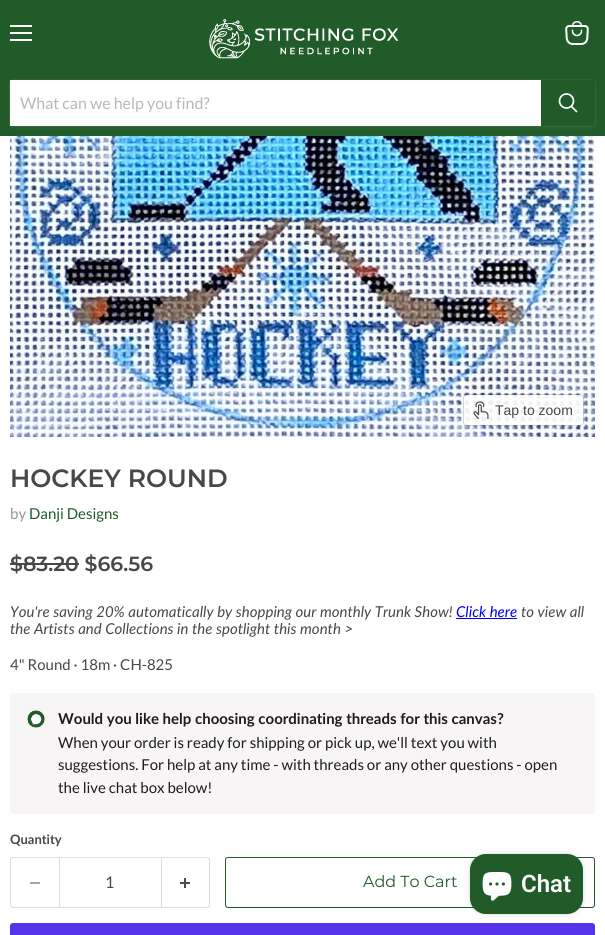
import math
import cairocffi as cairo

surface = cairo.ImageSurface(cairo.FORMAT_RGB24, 605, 935)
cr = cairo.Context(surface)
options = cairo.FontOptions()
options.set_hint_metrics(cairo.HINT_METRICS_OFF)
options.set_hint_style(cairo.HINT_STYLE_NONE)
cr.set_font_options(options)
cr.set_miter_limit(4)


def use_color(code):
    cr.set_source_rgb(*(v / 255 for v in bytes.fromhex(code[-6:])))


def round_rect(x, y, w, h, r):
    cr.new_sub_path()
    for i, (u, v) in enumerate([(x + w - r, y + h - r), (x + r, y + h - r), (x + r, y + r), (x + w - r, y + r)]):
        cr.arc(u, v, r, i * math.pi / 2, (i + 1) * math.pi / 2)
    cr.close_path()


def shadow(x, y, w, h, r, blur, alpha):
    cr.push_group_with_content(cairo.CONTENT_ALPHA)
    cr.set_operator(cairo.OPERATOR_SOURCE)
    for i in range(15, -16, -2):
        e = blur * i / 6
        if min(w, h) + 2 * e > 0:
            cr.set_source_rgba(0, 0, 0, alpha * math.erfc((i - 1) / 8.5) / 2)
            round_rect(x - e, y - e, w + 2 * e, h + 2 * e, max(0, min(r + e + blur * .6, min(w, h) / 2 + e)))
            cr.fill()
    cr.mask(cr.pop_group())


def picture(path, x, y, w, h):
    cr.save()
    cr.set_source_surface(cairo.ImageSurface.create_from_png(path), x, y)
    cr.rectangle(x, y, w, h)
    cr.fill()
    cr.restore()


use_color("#ffffff")
cr.paint()
use_color("#205b29")
cr.rectangle(0, 0, 605, 136)
cr.fill()
use_color("#ffffff")
cr.rectangle(10, 25, 22, 2)
cr.fill()
cr.rectangle(10, 32, 22, 2)
cr.fill()
cr.rectangle(10, 39, 22, 2)
cr.fill()
picture("img1.png", 565, 21, 24, 24)
picture("img2.png", 209, 19, 190, 40)
use_color("#808080")
shadow(9, 81, 587, 48, 4, 1.5, 0.11)
round_rect(9.5, 79.5, 586, 47, 3.5)
cr.set_source_rgba(0.502, 0.502, 0.502, 0.2)
cr.set_line_width(1)
cr.stroke()
use_color("#ffffff")
cr.rectangle(10, 80, 531, 46)
cr.fill()
cr.select_font_face("Lato")
cr.set_font_size(16)
use_color("#b8b8b8")
cr.move_to(20, 109)
cr.show_text("What can we help you find?")
use_color("#205b29")
cr.new_path()
cr.move_to(541.5, 80.5)
cr.line_to(592, 80.5)
cr.curve_to(593.5, 80.5, 594.5, 81.5, 594.5, 83)
cr.line_to(594.5, 123)
cr.curve_to(594.5, 124.5, 593.5, 125.5, 592, 125.5)
cr.line_to(541.5, 125.5)
cr.close_path()
cr.fill_preserve()
cr.stroke()
cr.new_path()
cr.move_to(576.5, 111.5)
cr.line_to(571.5, 106.5)
use_color("#ffffff")
cr.set_line_width(1.7)
cr.set_line_cap(cairo.LINE_CAP_ROUND)
cr.stroke()
cr.arc(566.5, 101, 7, 0, 2 * math.pi)
cr.set_line_cap(cairo.LINE_CAP_BUTT)
cr.stroke()
picture("img3.png", 10, 136, 585, 301)
round_rect(463.5, 394.5, 120, 31, 3.5)
cr.set_source_rgba(0, 0, 0, 0.15)
cr.set_line_width(1)
cr.stroke()
cr.set_source_rgba(1, 1, 1, 0.9)
round_rect(464, 395, 119, 30, 3)
cr.fill()
picture("img4.png", 473, 401, 16, 18)
cr.select_font_face("Liberation Sans")
cr.set_font_size(14)
use_color("#484848")
cr.move_to(495, 415)
cr.show_text("Tap to zoom")
cr.select_font_face("Montserrat SemiBold")
cr.set_font_size(25)
cr.move_to(10, 487)
cr.show_text("HOCKEY ROUND")
cr.select_font_face("Lato")
cr.set_font_size(15)
use_color("#949494")
cr.move_to(10, 519)
cr.show_text("by")
use_color("#205b29")
cr.move_to(29, 519)
cr.show_text("Danji Designs")
cr.select_font_face("Montserrat SemiBold")
cr.set_font_size(20.5)
use_color("#484848")
cr.move_to(10, 571)
cr.show_text("$83.20 $66.56")
cr.rectangle(10, 563, 69, 2)
cr.fill()
cr.select_font_face("Lato", cairo.FONT_SLANT_ITALIC)
cr.set_font_size(15)
cr.move_to(10, 617)
cr.show_text("You're saving 20% automatically by shopping our monthly Trunk Show!")
use_color("#0000ee")
cr.move_to(456, 617)
cr.show_text("Click here")
cr.rectangle(456, 618, 61, 1)
cr.fill()
use_color("#484848")
cr.move_to(521, 617)
cr.show_text("to view all")
cr.move_to(10, 634)
cr.show_text("the Artists and Collections in the spotlight this month >")
cr.select_font_face("Lato")
cr.move_to(10, 670)
cr.show_text("4\" Round · 18m · CH-825")
use_color("#f8f5f6")
round_rect(10, 693, 585, 121, 3)
cr.fill()
picture("img5.png", 27, 710, 18, 18)
cr.select_font_face("Lato", cairo.FONT_SLANT_NORMAL, cairo.FONT_WEIGHT_BOLD)
use_color("#1d1d1d")
cr.move_to(58, 724)
cr.show_text("Would you like help choosing coordinating threads for this canvas?")
cr.select_font_face("Lato")
cr.move_to(58, 748)
cr.show_text("When your order is ready for shipping or pick up, we'll text you with")
cr.move_to(58, 770)
cr.show_text("suggestions. For help at any time - with threads or any other questions - open")
cr.move_to(58, 793)
cr.show_text("the live chat box below!")
cr.select_font_face("Lato", cairo.FONT_SLANT_NORMAL, cairo.FONT_WEIGHT_BOLD)
cr.set_font_size(13)
use_color("#484848")
cr.move_to(10, 844)
cr.show_text("Quantity")
use_color("#dddddd")
cr.set_fill_rule(cairo.FILL_RULE_EVEN_ODD)
cr.new_path()
cr.move_to(13, 857)
cr.line_to(59, 857)
cr.line_to(59, 908)
cr.line_to(13, 908)
cr.curve_to(11, 908, 10, 907, 10, 905)
cr.line_to(10, 860)
cr.curve_to(10, 858, 11, 857, 13, 857)
cr.close_path()
cr.move_to(13, 858)
cr.line_to(59, 858)
cr.line_to(59, 907)
cr.line_to(21, 907)
cr.curve_to(17, 907, 11, 908, 11, 905)
cr.line_to(11, 859)
cr.close_path()
cr.fill()
use_color("#a6a6a6")
cr.rectangle(30, 882, 10, 2)
cr.fill()
cr.rectangle(59.5, 857.5, 102, 50)
use_color("#dddddd")
cr.stroke()
cr.select_font_face("Lato")
cr.set_font_size(16)
use_color("#484848")
cr.move_to(105, 888)
cr.show_text("1")
use_color("#dddddd")
cr.new_path()
cr.move_to(162, 857)
cr.line_to(207, 857)
cr.curve_to(209, 857, 210, 858, 210, 860)
cr.line_to(210, 905)
cr.curve_to(210, 907, 209, 908, 207, 908)
cr.line_to(162, 908)
cr.close_path()
cr.move_to(162, 858)
cr.line_to(207, 858)
cr.curve_to(208, 858, 209, 859, 209, 860)
cr.line_to(209, 905)
cr.curve_to(209, 906, 208, 907, 207, 907)
cr.line_to(162, 907)
cr.close_path()
cr.fill()
picture("img6.png", 180, 878, 10, 10)
round_rect(225.5, 857.5, 369, 50, 2.5)
use_color("#205b29")
cr.stroke()
cr.select_font_face("Montserrat")
cr.move_to(363, 887)
cr.show_text("Add To Cart")
use_color("#5433eb")
round_rect(10, 923, 585, 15, 3)
cr.fill()
use_color("#000000")
shadow(470, 854, 113, 60, 16, 2.5, 0.15)
use_color("#205b29")
round_rect(470, 854, 113, 60, 16)
cr.fill()
picture("img7.png", 482, 872, 30, 29)
cr.select_font_face("Roboto SemiBold")
cr.set_font_size(24)
use_color("#ffffff")
cr.move_to(521, 892)
cr.show_text("Chat")
surface.write_to_png("result.png")
